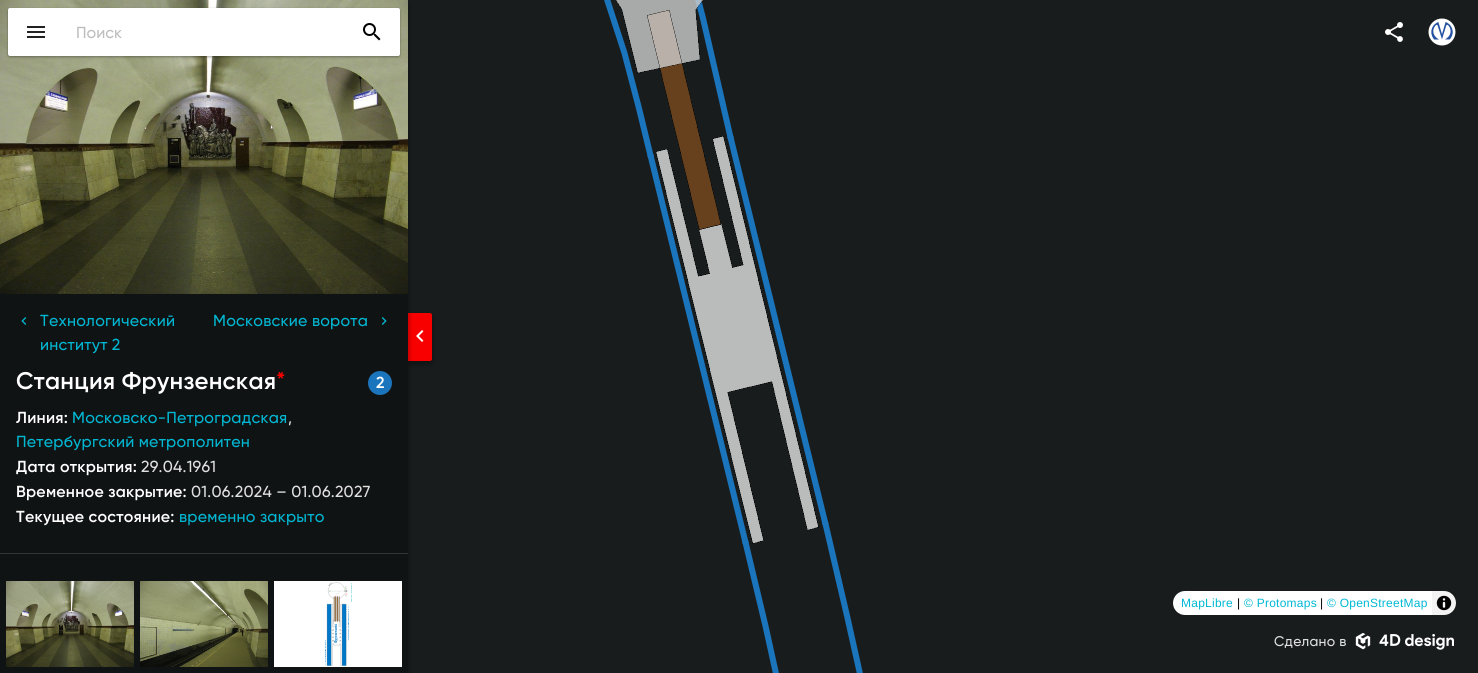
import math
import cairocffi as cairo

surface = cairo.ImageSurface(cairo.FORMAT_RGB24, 1478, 673)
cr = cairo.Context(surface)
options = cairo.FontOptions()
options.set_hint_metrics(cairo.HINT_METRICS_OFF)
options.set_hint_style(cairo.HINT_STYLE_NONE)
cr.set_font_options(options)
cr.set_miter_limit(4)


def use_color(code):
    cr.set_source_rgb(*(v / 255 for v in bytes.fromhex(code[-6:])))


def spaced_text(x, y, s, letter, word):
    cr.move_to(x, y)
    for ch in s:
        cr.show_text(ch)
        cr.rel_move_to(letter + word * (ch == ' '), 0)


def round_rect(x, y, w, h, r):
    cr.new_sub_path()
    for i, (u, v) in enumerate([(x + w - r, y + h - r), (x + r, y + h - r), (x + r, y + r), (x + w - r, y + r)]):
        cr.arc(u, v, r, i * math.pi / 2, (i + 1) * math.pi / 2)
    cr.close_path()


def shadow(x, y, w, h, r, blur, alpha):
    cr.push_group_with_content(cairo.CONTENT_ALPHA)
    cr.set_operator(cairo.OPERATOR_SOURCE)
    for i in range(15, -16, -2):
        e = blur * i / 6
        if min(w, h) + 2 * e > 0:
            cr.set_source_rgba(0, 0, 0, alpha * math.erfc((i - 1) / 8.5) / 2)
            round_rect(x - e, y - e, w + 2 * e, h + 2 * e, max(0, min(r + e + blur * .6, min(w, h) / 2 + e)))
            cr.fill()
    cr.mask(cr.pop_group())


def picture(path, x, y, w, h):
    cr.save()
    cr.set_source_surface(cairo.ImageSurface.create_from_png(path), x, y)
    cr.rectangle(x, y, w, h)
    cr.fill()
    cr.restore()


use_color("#ffffff")
cr.paint()
picture("img12.png", 408, 0, 1070, 673)
use_color("#000000")
shadow(408, 316, 24, 48, 2, 3, 0.23)
shadow(408, 316, 24, 48, 2, 3, 0.16)
use_color("#f90000")
cr.new_path()
cr.move_to(408, 313)
cr.line_to(430, 313)
cr.curve_to(431, 313, 432, 314, 432, 315)
cr.line_to(432, 359)
cr.curve_to(432, 360, 431, 361, 430, 361)
cr.line_to(408, 361)
cr.close_path()
cr.fill()
picture("img11.png", 416, 330, 8, 12)
use_color("#000000")
shadow(0, 3, 408, 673, 0, 3, 0.23)
shadow(0, 3, 408, 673, 0, 3, 0.16)
use_color("#101313")
cr.rectangle(0, 293, 408, 380)
cr.fill()
picture("img5.png", 0, 0, 408, 294)
use_color("#000000")
shadow(8, 9, 392, 48, 2, 1, 0.24)
shadow(8, 9, 392, 48, 2, 1.5, 0.12)
use_color("#ffffff")
round_rect(8, 8, 392, 48, 2)
cr.fill()
picture("img1.png", 27, 26, 18, 12)
cr.select_font_face("Gilroy Medium")
cr.set_font_size(16)
use_color("#bdbdbd")
cr.move_to(76, 38)
cr.show_text("Поиск")
picture("img2.png", 363, 23, 18, 18)
picture("img3.png", 1385, 22, 18, 20)
picture("img4.png", 1428, 18, 28, 28)
picture("img6.png", 21, 317, 6, 8)
use_color("#00b8d4")
spaced_text(40, 326, "Технологический", 0.25, 0)
spaced_text(40, 350, "институт 2", 0.25, 0)
spaced_text(213, 326, "Московские ворота", 0.25, 0)
picture("img7.png", 381, 317, 6, 8)
cr.select_font_face("Gilroy SemiBold")
cr.set_font_size(24)
use_color("#ffffff")
spaced_text(16, 389, "Станция Фрунзенская", 0.25, 0)
use_color("#f90000")
spaced_text(276, 389, "*", 0.25, 0)
use_color("#1b75bc")
cr.new_path()
cr.arc(380, 383, 12, 0, 2 * math.pi)
cr.fill()
cr.set_font_size(16)
use_color("#ffffff")
spaced_text(376, 388, "2", 0.25, 0)
spaced_text(16, 423, "Линия:", 0.25, 0)
cr.select_font_face("Gilroy Medium")
use_color("#00b8d4")
spaced_text(72, 423, "Московско-Петроградская", 0.25, 0)
use_color("#e0e0e0")
spaced_text(288, 423, ",", 0.25, 0)
use_color("#00b8d4")
spaced_text(16, 447, "Петербургский метрополитен", 0.25, 0)
cr.select_font_face("Gilroy SemiBold")
use_color("#ffffff")
spaced_text(16, 472, "Дата открытия:", 0.25, 0)
cr.select_font_face("Gilroy Medium")
use_color("#e0e0e0")
spaced_text(141, 472, "29.04.1961", 0.25, 0)
cr.select_font_face("Gilroy SemiBold")
use_color("#ffffff")
spaced_text(16, 497, "Временное закрытие:", 0.25, 0)
cr.select_font_face("Gilroy Medium")
use_color("#e0e0e0")
spaced_text(191, 497, "01.06.2024 – 01.06.2027", 0.25, 0)
cr.select_font_face("Gilroy SemiBold")
use_color("#ffffff")
spaced_text(16, 522, "Текущее состояние:", 0.25, 0)
cr.select_font_face("Gilroy Medium")
use_color("#00b8d4")
spaced_text(179, 522, "временно закрыто", 0.25, 0)
use_color("#333333")
cr.rectangle(0, 553, 408, 1)
cr.fill()
picture("img8.png", 6, 581, 128, 86)
picture("img9.png", 140, 581, 128, 86)
use_color("#ffffff")
cr.rectangle(274, 581, 128, 86)
cr.fill()
picture("img10.png", 325, 582, 27, 84)
round_rect(1173, 591, 283, 24, 12)
cr.fill()
cr.select_font_face("Liberation Sans")
cr.set_font_size(12)
use_color("#00b8d4")
spaced_text(1181, 607, "MapLibre", 0.25, 0)
use_color("#000000")
spaced_text(1237, 607, "|", 0.25, 0)
use_color("#00b8d4")
spaced_text(1244, 607, "© Protomaps", 0.25, 0)
use_color("#000000")
spaced_text(1320, 607, "|", 0.25, 0)
use_color("#00b8d4")
spaced_text(1327, 607, "© OpenStreetMap", 0.25, 0)
cr.set_source_rgba(0, 0, 0, 0.05)
cr.rectangle(1432, 591, 24, 24)
cr.fill()
picture("img13.png", 1436, 595, 16, 16)
cr.select_font_face("Gilroy Medium")
cr.set_font_size(14)
use_color("#e0e0e0")
spaced_text(1274, 646, "Сделано в", 0.25, 0)
picture("img14.png", 1355, 633, 99, 17)
surface.write_to_png("result.png")
